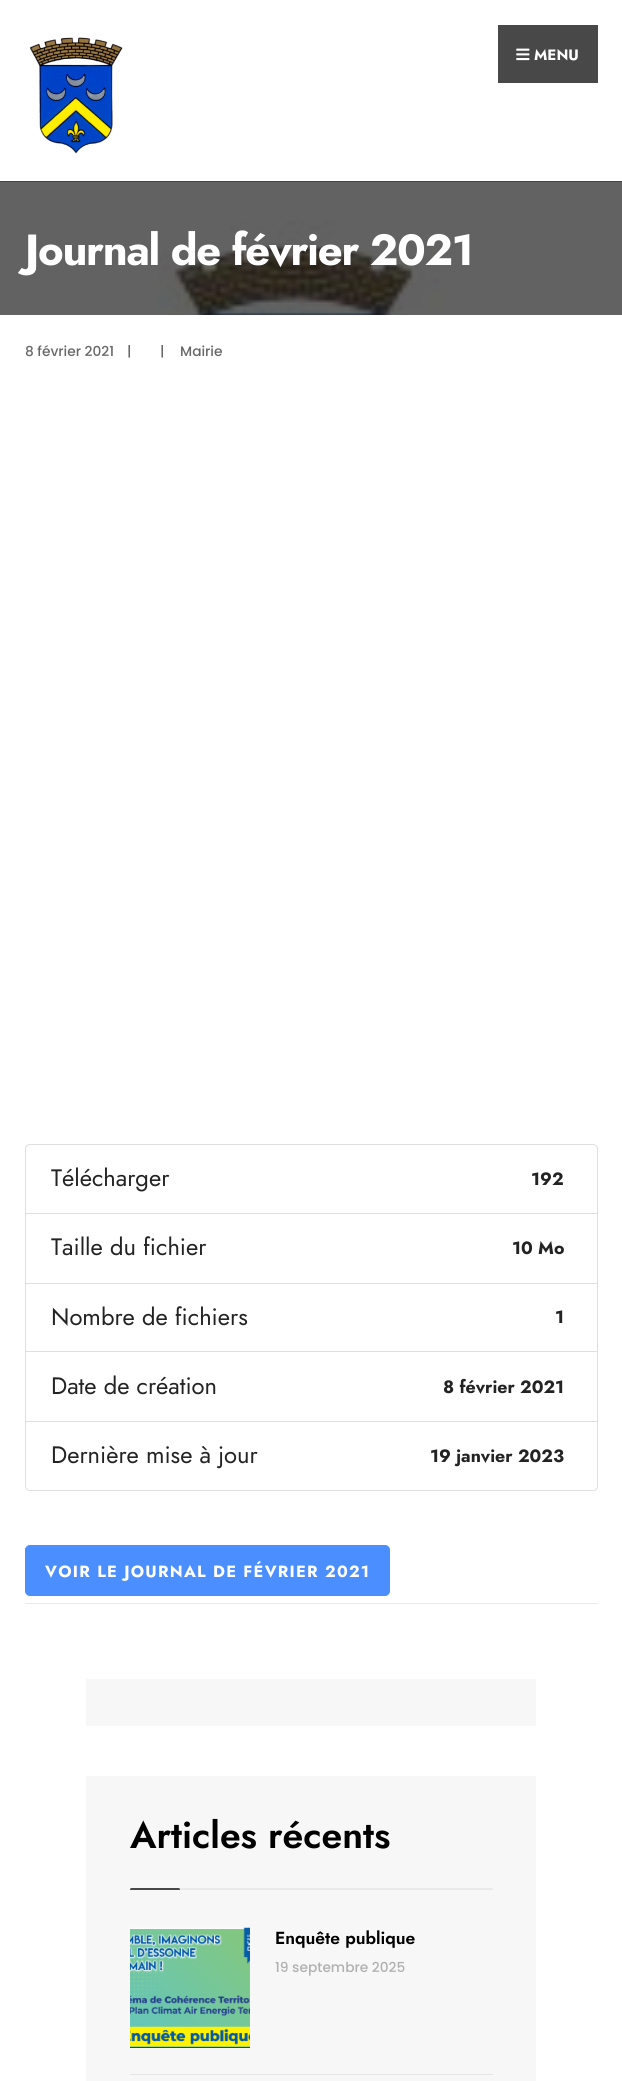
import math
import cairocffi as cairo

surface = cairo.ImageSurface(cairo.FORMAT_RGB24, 622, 2081)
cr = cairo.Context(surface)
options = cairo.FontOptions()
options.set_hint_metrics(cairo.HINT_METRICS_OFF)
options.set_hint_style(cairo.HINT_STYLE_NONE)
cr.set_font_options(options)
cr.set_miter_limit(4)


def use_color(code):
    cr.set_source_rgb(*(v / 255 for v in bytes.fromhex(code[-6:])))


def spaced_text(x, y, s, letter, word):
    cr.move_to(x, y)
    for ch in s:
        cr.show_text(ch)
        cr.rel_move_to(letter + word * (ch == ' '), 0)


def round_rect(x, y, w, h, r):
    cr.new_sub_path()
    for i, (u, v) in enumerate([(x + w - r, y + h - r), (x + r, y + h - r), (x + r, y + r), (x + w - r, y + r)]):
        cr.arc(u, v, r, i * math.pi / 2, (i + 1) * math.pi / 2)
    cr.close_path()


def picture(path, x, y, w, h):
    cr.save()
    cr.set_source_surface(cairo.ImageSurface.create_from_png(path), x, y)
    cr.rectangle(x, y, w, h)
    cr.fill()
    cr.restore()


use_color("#ffffff")
cr.paint()
picture("img1.png", 30, 37, 93, 117)
use_color("#494849")
cr.rectangle(498, 25, 100, 58)
cr.fill()
picture("img2.png", 516, 48, 14, 13)
cr.select_font_face("Jost", cairo.FONT_SLANT_NORMAL, cairo.FONT_WEIGHT_BOLD)
cr.set_font_size(15)
use_color("#ffffff")
cr.move_to(534, 60)
cr.show_text("MENU")
use_color("#1e1e1e")
cr.rectangle(0, 181, 622, 134)
cr.fill()
picture("img3.png", 0, 181, 622, 134)
cr.set_font_size(43.5)
use_color("#ffffff")
spaced_text(25, 265, "Journal de février 2021", -1.3, 0)
cr.select_font_face("Poppins Medium")
cr.set_font_size(13.75)
use_color("#686868")
cr.move_to(25, 356)
cr.show_text("8 février 2021")
cr.move_to(127, 356)
cr.show_text("|")
cr.move_to(160, 356)
cr.show_text("|")
cr.move_to(180, 356)
cr.show_text("Mairie")
cr.new_path()
cr.move_to(30, 1144.5)
cr.line_to(593, 1144.5)
cr.curve_to(595.5, 1144.5, 597.5, 1146.5, 597.5, 1149)
cr.line_to(597.5, 1213.5)
cr.line_to(25.5, 1213.5)
cr.line_to(25.5, 1149)
cr.curve_to(25.5, 1146.5, 27.5, 1144.5, 30, 1144.5)
cr.close_path()
use_color("#dfdfdf")
cr.set_line_width(1)
cr.stroke()
cr.select_font_face("Jost")
cr.set_font_size(23.75)
use_color("#232323")
cr.move_to(51, 1186)
cr.show_text("Télécharger")
cr.select_font_face("Jost", cairo.FONT_SLANT_NORMAL, cairo.FONT_WEIGHT_BOLD)
cr.set_font_size(17.75)
cr.move_to(531, 1185)
cr.show_text("192")
cr.rectangle(25.5, 1213.5, 572, 70)
use_color("#dfdfdf")
cr.stroke()
cr.select_font_face("Jost")
cr.set_font_size(23.75)
use_color("#232323")
cr.move_to(51, 1255)
cr.show_text("Taille du fichier")
cr.select_font_face("Jost", cairo.FONT_SLANT_NORMAL, cairo.FONT_WEIGHT_BOLD)
cr.set_font_size(17.75)
cr.move_to(512, 1254)
cr.show_text("10 Mo")
cr.rectangle(25.5, 1283.5, 572, 69)
use_color("#dfdfdf")
cr.stroke()
cr.select_font_face("Jost")
cr.set_font_size(23.75)
use_color("#232323")
cr.move_to(51, 1325)
cr.show_text("Nombre de fichiers")
cr.select_font_face("Jost", cairo.FONT_SLANT_NORMAL, cairo.FONT_WEIGHT_BOLD)
cr.set_font_size(17.75)
cr.move_to(555, 1323)
cr.show_text("1")
use_color("#ffffff")
cr.rectangle(26, 1352, 571, 1)
cr.fill()
cr.rectangle(25.5, 1351.5, 572, 71)
use_color("#dfdfdf")
cr.stroke()
cr.select_font_face("Jost")
cr.set_font_size(23.75)
use_color("#232323")
cr.move_to(51, 1394)
cr.show_text("Date de création")
cr.select_font_face("Jost", cairo.FONT_SLANT_NORMAL, cairo.FONT_WEIGHT_BOLD)
cr.set_font_size(17.75)
cr.move_to(443, 1393)
cr.show_text("8 février 2021")
use_color("#ffffff")
cr.new_path()
cr.move_to(25.5, 1421.5)
cr.line_to(597.5, 1421.5)
cr.line_to(597.5, 1486)
cr.curve_to(597.5, 1488.5, 595.5, 1490.5, 593, 1490.5)
cr.line_to(30, 1490.5)
cr.curve_to(27.5, 1490.5, 25.5, 1488.5, 25.5, 1486)
cr.close_path()
cr.fill_preserve()
use_color("#dfdfdf")
cr.stroke()
cr.select_font_face("Jost")
cr.set_font_size(23.75)
use_color("#232323")
cr.move_to(51, 1463)
cr.show_text("Dernière mise à jour")
cr.select_font_face("Jost", cairo.FONT_SLANT_NORMAL, cairo.FONT_WEIGHT_BOLD)
cr.set_font_size(17.75)
cr.move_to(430, 1462)
cr.show_text("19 janvier 2023")
use_color("#4a8eff")
round_rect(25.5, 1545.5, 364, 50, 4.5)
cr.fill_preserve()
cr.stroke()
cr.set_font_size(16.25)
use_color("#ffffff")
spaced_text(45, 1577, "VOIR LE JOURNAL DE FÉVRIER 2021", 1.25, 0)
use_color("#eaeaea")
cr.rectangle(25, 1603, 573, 1)
cr.fill()
use_color("#f7f7f7")
cr.rectangle(86, 1679, 450, 47)
cr.fill()
cr.rectangle(86, 1776, 450, 305)
cr.fill()
cr.select_font_face("Jost SemiBold")
cr.set_font_size(37.25)
use_color("#000000")
cr.move_to(130, 1848)
cr.show_text("Articles récents")
cr.save()
cr.rectangle(130, 1800, 363, 90)
cr.clip()
use_color("#eaeaea")
round_rect(178, 1888, 315, 3, 1.5)
cr.fill()
use_color("#494849")
round_rect(130, 1888, 50, 3, 1.5)
cr.fill()
cr.restore()
use_color("#1e1e1e")
cr.rectangle(130, 2047, 120, 1)
cr.fill()
picture("img4.png", 130, 1927, 120, 121)
cr.set_font_size(17.5)
use_color("#000000")
cr.move_to(275, 1944)
cr.show_text("Enquête publique")
cr.select_font_face("Poppins Medium")
cr.set_font_size(13.75)
use_color("#b0b0b0")
cr.move_to(275, 1972)
cr.show_text("19 septembre 2025")
use_color("#e6e6e6")
cr.rectangle(130, 2074, 363, 1)
cr.fill()
surface.write_to_png("result.png")
